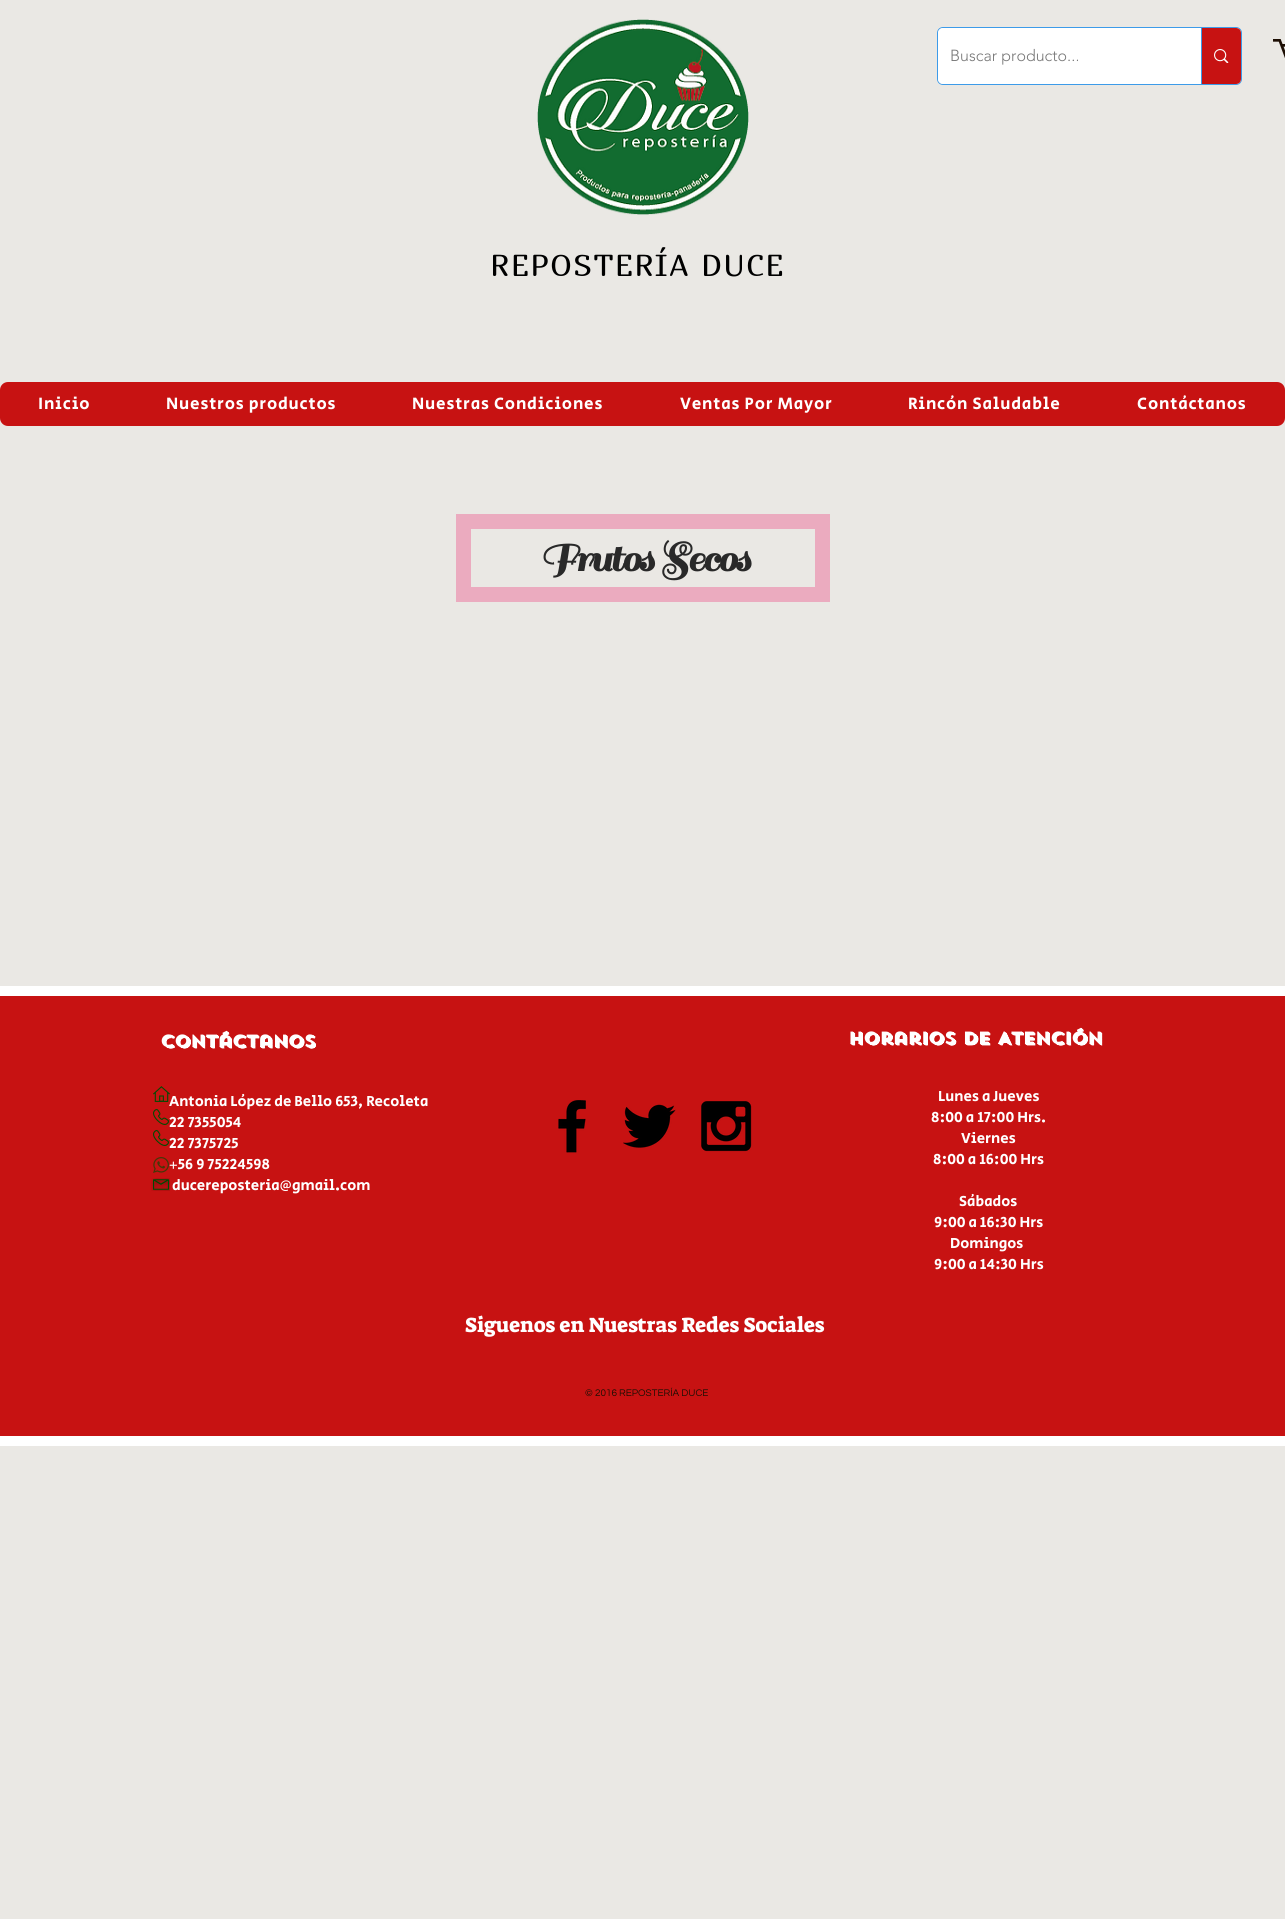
import math
import cairocffi as cairo

surface = cairo.ImageSurface(cairo.FORMAT_RGB24, 1285, 1919)
cr = cairo.Context(surface)
options = cairo.FontOptions()
options.set_hint_metrics(cairo.HINT_METRICS_OFF)
options.set_hint_style(cairo.HINT_STYLE_NONE)
cr.set_font_options(options)
cr.set_miter_limit(4)


def use_color(code):
    cr.set_source_rgb(*(v / 255 for v in bytes.fromhex(code[-6:])))


def spaced_text(x, y, s, letter, word):
    cr.move_to(x, y)
    for ch in s:
        cr.show_text(ch)
        cr.rel_move_to(letter + word * (ch == ' '), 0)


def round_rect(x, y, w, h, r):
    cr.new_sub_path()
    for i, (u, v) in enumerate([(x + w - r, y + h - r), (x + r, y + h - r), (x + r, y + r), (x + w - r, y + r)]):
        cr.arc(u, v, r, i * math.pi / 2, (i + 1) * math.pi / 2)
    cr.close_path()


def picture(path, x, y, w, h):
    cr.save()
    cr.set_source_surface(cairo.ImageSurface.create_from_png(path), x, y)
    cr.rectangle(x, y, w, h)
    cr.fill()
    cr.restore()


use_color("#eae8e4")
cr.paint()
picture("img1.png", 537, 19, 212, 196)
round_rect(937.5, 27.5, 304, 57, 5.5)
use_color("#3d9be9")
cr.set_line_width(1)
cr.stroke()
use_color("#ffffff")
round_rect(938, 28, 303, 56, 5)
cr.fill()
cr.select_font_face("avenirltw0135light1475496 Light")
cr.set_font_size(16)
use_color("#787878")
cr.move_to(950, 61)
cr.show_text("Buscar producto...")
use_color("#c71212")
cr.new_path()
cr.move_to(1201, 28)
cr.line_to(1236, 28)
cr.curve_to(1239, 28, 1241, 30, 1241, 33)
cr.line_to(1241, 79)
cr.curve_to(1241, 82, 1239, 84, 1236, 84)
cr.line_to(1201, 84)
cr.close_path()
cr.fill()
use_color("#3d9be9")
cr.rectangle(1201, 28, 1, 56)
cr.fill()
picture("img2.png", 1214, 49, 15, 14)
picture("img3.png", 1273, 39, 12, 19)
cr.select_font_face("Marmelad")
cr.set_font_size(30)
use_color("#000000")
spaced_text(490, 276, "REPOSTERÍA DUCE", 1.5, 0)
use_color("#c71212")
round_rect(0, 382, 1285, 44, 8)
cr.fill()
cr.select_font_face("Secular One")
cr.set_font_size(17)
use_color("#ffffff")
spaced_text(38, 409, "Inicio", 0.8, 0)
spaced_text(166, 409, "Nuestros productos", 0.8, 0)
spaced_text(412, 409, "Nuestras Condiciones", 0.8, 0)
spaced_text(680, 409, "Ventas Por Mayor", 0.8, 0)
spaced_text(908, 409, "Rincón Saludable", 0.8, 0)
spaced_text(1137, 409, "Contáctanos", 0.8, 0)
cr.rectangle(463.5, 521.5, 359, 73)
use_color("#ebabbf")
cr.set_line_width(15)
cr.stroke()
cr.select_font_face("Sail", cairo.FONT_SLANT_NORMAL, cairo.FONT_WEIGHT_BOLD)
cr.set_font_size(43)
use_color("#292929")
spaced_text(540, 571, "Frutos Secos", -2.1, 0)
use_color("#ffffff")
cr.rectangle(0, 986, 1285, 10)
cr.fill()
cr.rectangle(0, 1436, 1285, 10)
cr.fill()
use_color("#c71212")
cr.rectangle(0, 996, 1285, 440)
cr.fill()
cr.select_font_face("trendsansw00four", cairo.FONT_SLANT_NORMAL, cairo.FONT_WEIGHT_BOLD)
cr.set_font_size(17)
use_color("#ffffff")
cr.move_to(160, 1047)
cr.show_text("Contáctanos")
cr.move_to(848, 1044)
cr.show_text("Horarios de Atención")
cr.select_font_face("Secular One")
cr.set_font_size(15)
cr.move_to(169, 1106)
cr.show_text("Antonia López de Bello 653, Recoleta")
picture("img4.png", 153, 1086, 17, 16)
cr.move_to(169, 1127)
cr.show_text("22 7355054")
cr.move_to(169, 1148)
cr.show_text("22 7375725")
cr.move_to(169, 1169)
cr.show_text("+56 9 75224598")
cr.move_to(172, 1190)
cr.show_text("ducereposteria@gmail.com")
picture("img5.png", 558, 1100, 28, 53)
picture("img6.png", 623, 1104, 53, 44)
picture("img7.png", 701, 1101, 51, 51)
cr.move_to(938, 1101)
cr.show_text("Lunes a Jueves")
cr.move_to(931, 1122)
cr.show_text("8:00 a 17:00 Hrs.")
cr.move_to(961, 1143)
cr.show_text("Viernes")
cr.move_to(933, 1164)
cr.show_text("8:00 a 16:00 Hrs")
cr.move_to(959, 1206)
cr.show_text("Sábados")
cr.move_to(934, 1227)
cr.show_text("9:00 a 16:30 Hrs")
cr.move_to(950, 1248)
cr.show_text("Domingos")
cr.move_to(934, 1269)
cr.show_text("9:00 a 14:30 Hrs")
picture("img8.png", 153, 1109, 16, 16)
picture("img8.png", 153, 1130, 16, 16)
picture("img9.png", 153, 1157, 16, 16)
picture("img10.png", 151, 1178, 19, 13)
cr.select_font_face("Suez One")
cr.set_font_size(21)
cr.move_to(465, 1332)
cr.show_text("Siguenos en Nuestras Redes Sociales")
cr.select_font_face("Questrial")
cr.set_font_size(10)
use_color("#1d0e03")
cr.move_to(585, 1396)
cr.show_text("© 2016 REPOSTERÍA DUCE")
surface.write_to_png("result.png")
